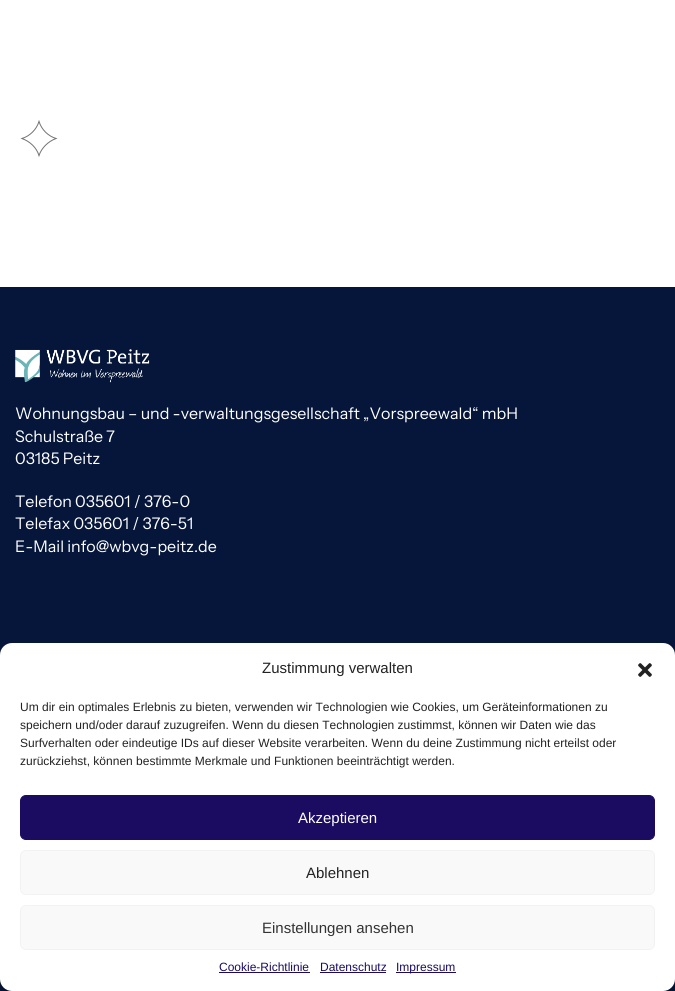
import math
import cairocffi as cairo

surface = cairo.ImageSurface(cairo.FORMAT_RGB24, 675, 991)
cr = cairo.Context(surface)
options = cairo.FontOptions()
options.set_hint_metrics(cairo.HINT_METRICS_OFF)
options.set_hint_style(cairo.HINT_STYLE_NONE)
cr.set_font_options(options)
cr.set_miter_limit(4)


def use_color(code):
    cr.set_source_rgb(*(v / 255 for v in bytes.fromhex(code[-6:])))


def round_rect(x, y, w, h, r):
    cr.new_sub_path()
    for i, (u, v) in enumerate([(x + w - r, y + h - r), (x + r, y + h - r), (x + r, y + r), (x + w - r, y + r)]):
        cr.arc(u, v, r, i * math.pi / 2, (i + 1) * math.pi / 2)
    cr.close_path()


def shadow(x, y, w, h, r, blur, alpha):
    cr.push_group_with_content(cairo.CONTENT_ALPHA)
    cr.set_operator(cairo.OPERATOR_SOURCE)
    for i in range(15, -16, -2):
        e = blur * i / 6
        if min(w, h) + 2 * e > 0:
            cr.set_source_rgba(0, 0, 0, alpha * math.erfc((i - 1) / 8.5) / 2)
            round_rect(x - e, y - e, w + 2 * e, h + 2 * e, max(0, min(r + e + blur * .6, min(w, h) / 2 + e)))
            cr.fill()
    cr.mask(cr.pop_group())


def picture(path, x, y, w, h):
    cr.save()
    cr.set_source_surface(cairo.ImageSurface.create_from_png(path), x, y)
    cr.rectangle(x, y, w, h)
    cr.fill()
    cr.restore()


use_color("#ffffff")
cr.paint()
cr.new_path()
cr.move_to(39, 155.5)
cr.curve_to(36.5, 147.5, 30, 141.5, 22, 138.5)
cr.curve_to(30, 136, 36.5, 129.5, 39, 121.5)
cr.curve_to(41.5, 129.5, 48, 136, 56, 138.5)
cr.curve_to(48, 141.5, 41.5, 148, 39, 155.5)
cr.close_path()
use_color("#747474")
cr.set_line_width(1)
cr.stroke()
use_color("#06163a")
cr.rectangle(0, 287, 675, 704)
cr.fill()
picture("img1.png", 15, 349, 135, 34)
cr.select_font_face("Instrument Sans")
cr.set_font_size(16)
use_color("#ffffff")
cr.move_to(15, 419)
cr.show_text("Wohnungsbau – und -verwaltungsgesellschaft „Vorspreewald“ mbH")
cr.move_to(15, 442)
cr.show_text("Schulstraße 7")
cr.move_to(15, 464)
cr.show_text("03185 Peitz")
cr.move_to(15, 507)
cr.show_text("Telefon 035601 / 376-0")
cr.move_to(15, 529)
cr.show_text("Telefax 035601 / 376-51")
cr.move_to(15, 552)
cr.show_text("E-Mail info@wbvg-peitz.de")
use_color("#000000")
shadow(0, 649, 675, 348, 12, 3, 0.23)
use_color("#ffffff")
round_rect(0, 643, 675, 348, 12)
cr.fill()
cr.select_font_face("Liberation Sans")
cr.set_font_size(15)
use_color("#222222")
cr.move_to(262, 673)
cr.show_text("Zustimmung verwalten")
picture("img2.png", 638, 663, 14, 14)
cr.set_font_size(12)
cr.move_to(20, 711)
cr.show_text("Um dir ein optimales Erlebnis zu bieten, verwenden wir Technologien wie Cookies, um Geräteinformationen zu")
cr.move_to(20, 729)
cr.show_text("speichern und/oder darauf zuzugreifen. Wenn du diesen Technologien zustimmst, können wir Daten wie das")
cr.move_to(20, 747)
cr.show_text("Surfverhalten oder eindeutige IDs auf dieser Website verarbeiten. Wenn du deine Zustimmung nicht erteilst oder")
cr.move_to(20, 765)
cr.show_text("zurückziehst, können bestimmte Merkmale und Funktionen beeinträchtigt werden.")
use_color("#1b0c62")
round_rect(20.5, 795.5, 634, 44, 5.5)
cr.fill_preserve()
cr.stroke()
cr.set_font_size(15)
use_color("#ffffff")
cr.move_to(298, 823)
cr.show_text("Akzeptieren")
use_color("#f9f9f9")
round_rect(20.5, 850.5, 634, 44, 5.5)
cr.fill_preserve()
use_color("#f2f2f2")
cr.stroke()
use_color("#222222")
cr.move_to(306, 878)
cr.show_text("Ablehnen")
use_color("#f9f9f9")
round_rect(20.5, 905.5, 634, 44, 5.5)
cr.fill_preserve()
use_color("#f2f2f2")
cr.stroke()
use_color("#333333")
cr.move_to(262, 933)
cr.show_text("Einstellungen ansehen")
cr.set_font_size(12)
use_color("#1b0c62")
cr.move_to(219, 971)
cr.show_text("Cookie-Richtlinie")
cr.rectangle(219, 972, 91, 1)
cr.fill()
cr.move_to(320, 971)
cr.show_text("Datenschutz")
cr.rectangle(320, 972, 66, 1)
cr.fill()
cr.rectangle(396, 972, 60, 1)
cr.fill()
cr.move_to(396, 971)
cr.show_text("Impressum")
surface.write_to_png("result.png")
